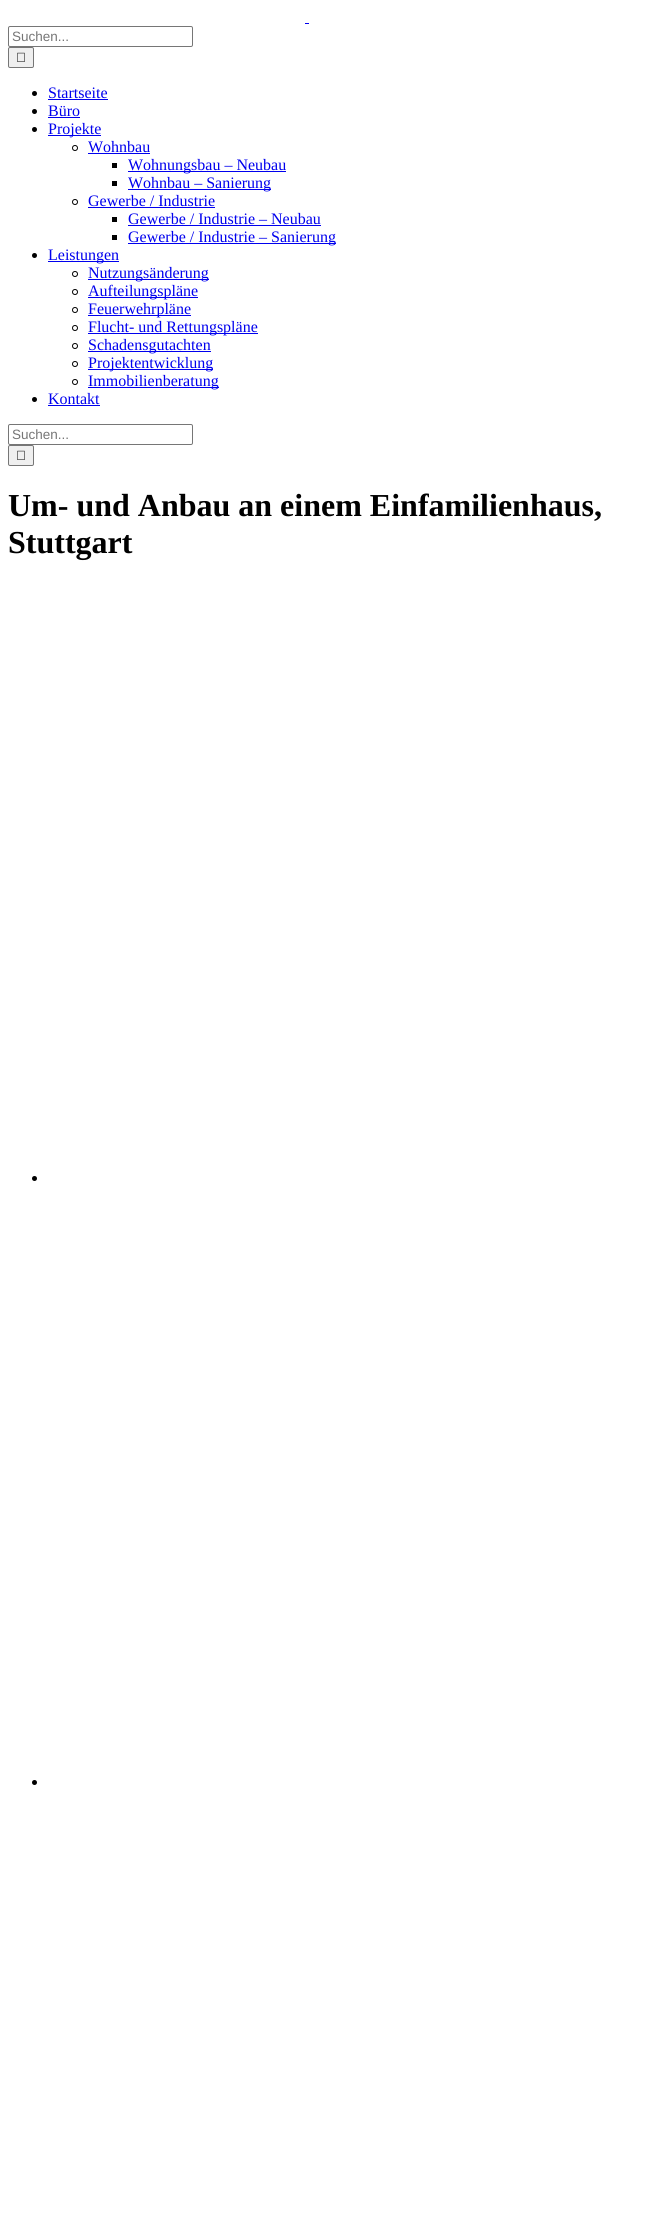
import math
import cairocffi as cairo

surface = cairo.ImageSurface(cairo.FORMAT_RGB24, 647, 2239)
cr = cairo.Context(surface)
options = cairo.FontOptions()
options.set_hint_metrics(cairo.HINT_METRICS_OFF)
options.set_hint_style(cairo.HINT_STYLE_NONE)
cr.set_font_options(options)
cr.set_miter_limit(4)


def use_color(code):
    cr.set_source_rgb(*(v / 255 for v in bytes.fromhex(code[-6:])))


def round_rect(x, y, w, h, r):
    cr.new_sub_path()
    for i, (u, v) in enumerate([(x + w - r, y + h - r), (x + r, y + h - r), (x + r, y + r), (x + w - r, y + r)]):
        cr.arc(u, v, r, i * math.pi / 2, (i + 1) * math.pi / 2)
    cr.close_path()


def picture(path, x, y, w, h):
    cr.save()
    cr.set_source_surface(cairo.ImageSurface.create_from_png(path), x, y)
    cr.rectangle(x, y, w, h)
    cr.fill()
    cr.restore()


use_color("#ffffff")
cr.paint()
use_color("#0000ee")
cr.rectangle(305, 23, 4, 1)
cr.fill()
round_rect(8.5, 26.5, 184, 20, 1.5)
use_color("#767676")
cr.set_line_width(1)
cr.stroke()
cr.select_font_face("Liberation Sans")
cr.set_font_size(13.5)
use_color("#757575")
cr.move_to(12, 41)
cr.show_text("Suchen...")
use_color("#efefef")
round_rect(8.5, 47.5, 25, 20, 1.5)
cr.fill_preserve()
use_color("#767676")
cr.stroke()
picture("img1.png", 17, 52, 8, 10)
use_color("#000000")
cr.arc(34.5, 93.5, 2.5, 0, 2 * math.pi)
cr.fill()
cr.select_font_face("Liberation Serif")
cr.set_font_size(16)
use_color("#0000ee")
cr.move_to(48, 98)
cr.show_text("Startseite")
cr.rectangle(48, 99, 60, 1)
cr.fill()
use_color("#000000")
cr.arc(34.5, 111.5, 2.5, 0, 2 * math.pi)
cr.fill()
use_color("#0000ee")
cr.move_to(48, 116)
cr.show_text("Büro")
cr.rectangle(48, 117, 32, 1)
cr.fill()
use_color("#000000")
cr.arc(34.5, 129.5, 2.5, 0, 2 * math.pi)
cr.fill()
use_color("#0000ee")
cr.rectangle(48, 135, 53, 1)
cr.fill()
cr.move_to(48, 134)
cr.show_text("Projekte")
cr.new_path()
cr.arc(75, 148, 2.5, 0, 2 * math.pi)
use_color("#000000")
cr.stroke()
use_color("#0000ee")
cr.move_to(88, 152)
cr.show_text("Wohnbau")
cr.rectangle(88, 153, 62, 1)
cr.fill()
use_color("#000000")
cr.rectangle(112, 163, 5, 5)
cr.fill()
use_color("#0000ee")
cr.rectangle(128, 171, 158, 1)
cr.fill()
cr.move_to(128, 170)
cr.show_text("Wohnungsbau – Neubau")
use_color("#000000")
cr.rectangle(112, 181, 5, 5)
cr.fill()
use_color("#0000ee")
cr.rectangle(128, 189, 143, 1)
cr.fill()
cr.move_to(128, 188)
cr.show_text("Wohnbau – Sanierung")
cr.new_path()
cr.arc(75, 202, 2.5, 0, 2 * math.pi)
use_color("#000000")
cr.stroke()
use_color("#0000ee")
cr.move_to(88, 206)
cr.show_text("Gewerbe / Industrie")
cr.rectangle(88, 207, 127, 1)
cr.fill()
use_color("#000000")
cr.rectangle(112, 217, 5, 5)
cr.fill()
use_color("#0000ee")
cr.move_to(128, 224)
cr.show_text("Gewerbe / Industrie – Neubau")
cr.rectangle(128, 225, 193, 1)
cr.fill()
use_color("#000000")
cr.rectangle(112, 235, 5, 5)
cr.fill()
use_color("#0000ee")
cr.rectangle(128, 243, 208, 1)
cr.fill()
cr.move_to(128, 242)
cr.show_text("Gewerbe / Industrie – Sanierung")
use_color("#000000")
cr.new_path()
cr.arc(34.5, 255.5, 2.5, 0, 2 * math.pi)
cr.fill()
use_color("#0000ee")
cr.rectangle(48, 261, 71, 1)
cr.fill()
cr.move_to(48, 260)
cr.show_text("Leistungen")
cr.new_path()
cr.arc(75, 274, 2.5, 0, 2 * math.pi)
use_color("#000000")
cr.stroke()
use_color("#0000ee")
cr.rectangle(88, 279, 121, 1)
cr.fill()
cr.move_to(88, 278)
cr.show_text("Nutzungsänderung")
cr.new_path()
cr.arc(75, 292, 2.5, 0, 2 * math.pi)
use_color("#000000")
cr.stroke()
use_color("#0000ee")
cr.rectangle(88, 297, 110, 1)
cr.fill()
cr.move_to(88, 296)
cr.show_text("Aufteilungspläne")
cr.new_path()
cr.arc(75, 310, 2.5, 0, 2 * math.pi)
use_color("#000000")
cr.stroke()
use_color("#0000ee")
cr.rectangle(88, 315, 103, 1)
cr.fill()
cr.move_to(88, 314)
cr.show_text("Feuerwehrpläne")
cr.new_path()
cr.arc(75, 328, 2.5, 0, 2 * math.pi)
use_color("#000000")
cr.stroke()
use_color("#0000ee")
cr.rectangle(88, 333, 170, 1)
cr.fill()
cr.move_to(88, 332)
cr.show_text("Flucht- und Rettungspläne")
cr.new_path()
cr.arc(75, 346, 2.5, 0, 2 * math.pi)
use_color("#000000")
cr.stroke()
use_color("#0000ee")
cr.rectangle(88, 351, 123, 1)
cr.fill()
cr.move_to(88, 350)
cr.show_text("Schadensgutachten")
cr.new_path()
cr.arc(75, 364, 2.5, 0, 2 * math.pi)
use_color("#000000")
cr.stroke()
use_color("#0000ee")
cr.rectangle(88, 369, 125, 1)
cr.fill()
cr.move_to(88, 368)
cr.show_text("Projektentwicklung")
cr.new_path()
cr.arc(75, 382, 2.5, 0, 2 * math.pi)
use_color("#000000")
cr.stroke()
use_color("#0000ee")
cr.rectangle(88, 387, 131, 1)
cr.fill()
cr.move_to(88, 386)
cr.show_text("Immobilienberatung")
use_color("#000000")
cr.new_path()
cr.arc(34.5, 399.5, 2.5, 0, 2 * math.pi)
cr.fill()
use_color("#0000ee")
cr.move_to(48, 404)
cr.show_text("Kontakt")
cr.rectangle(48, 405, 52, 1)
cr.fill()
round_rect(8.5, 424.5, 184, 20, 1.5)
use_color("#767676")
cr.stroke()
cr.select_font_face("Liberation Sans")
cr.set_font_size(13.5)
use_color("#757575")
cr.move_to(12, 439)
cr.show_text("Suchen...")
use_color("#efefef")
round_rect(8.5, 445.5, 25, 20, 1.5)
cr.fill_preserve()
use_color("#767676")
cr.stroke()
picture("img1.png", 17, 450, 8, 10)
cr.select_font_face("Liberation Serif", cairo.FONT_SLANT_NORMAL, cairo.FONT_WEIGHT_BOLD)
cr.set_font_size(32)
use_color("#000000")
cr.move_to(8, 516)
cr.show_text("Um- und Anbau an einem Einfamilienhaus,")
cr.move_to(8, 553)
cr.show_text("Stuttgart")
cr.new_path()
cr.arc(34.5, 1178.5, 2.5, 0, 2 * math.pi)
cr.fill()
cr.arc(34.5, 1782.5, 2.5, 0, 2 * math.pi)
cr.fill()
surface.write_to_png("result.png")
